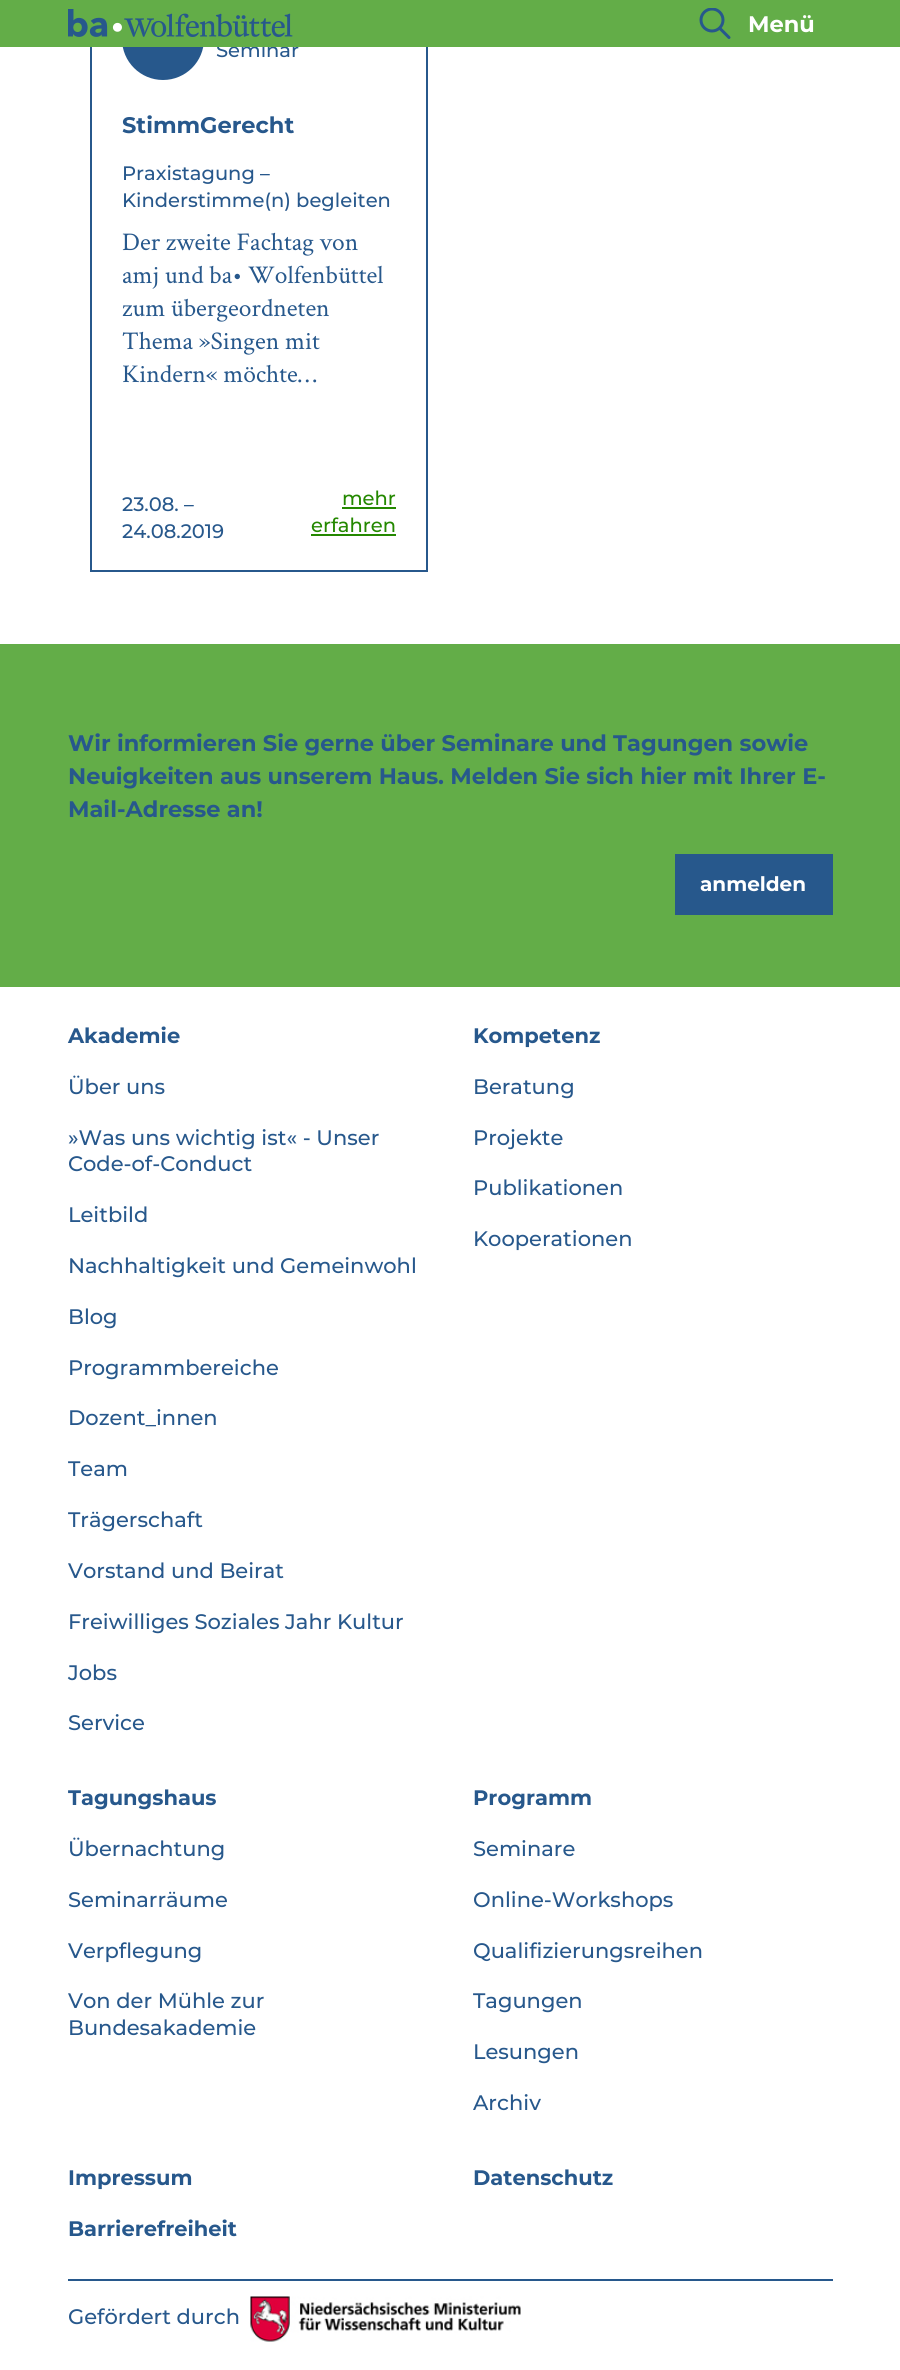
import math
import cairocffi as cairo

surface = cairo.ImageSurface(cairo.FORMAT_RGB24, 900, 2370)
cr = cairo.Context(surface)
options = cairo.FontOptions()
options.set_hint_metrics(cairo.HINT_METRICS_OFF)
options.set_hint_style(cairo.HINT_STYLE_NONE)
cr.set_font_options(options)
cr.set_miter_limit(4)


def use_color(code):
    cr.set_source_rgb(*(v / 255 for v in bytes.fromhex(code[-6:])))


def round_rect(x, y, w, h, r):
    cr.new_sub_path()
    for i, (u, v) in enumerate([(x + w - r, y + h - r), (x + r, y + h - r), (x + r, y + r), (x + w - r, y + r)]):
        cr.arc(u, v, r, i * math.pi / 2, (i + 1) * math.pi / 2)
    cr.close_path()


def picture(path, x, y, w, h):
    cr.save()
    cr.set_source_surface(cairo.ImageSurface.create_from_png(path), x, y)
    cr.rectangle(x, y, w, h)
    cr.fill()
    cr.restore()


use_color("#ffffff")
cr.paint()
cr.rectangle(91, -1, 336, 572)
use_color("#27588c")
cr.stroke()
round_rect(122, -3, 82, 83, 41)
cr.fill()
cr.select_font_face("Montserrat Medium")
cr.set_font_size(19.5)
cr.move_to(216, 57)
cr.show_text("Seminar")
use_color("#63ad48")
cr.rectangle(0, 0, 900, 47)
cr.fill()
picture("img1.png", 68, 9, 225, 28)
cr.new_path()
cr.move_to(729, 37.5)
cr.line_to(720, 28.5)
use_color("#27588c")
cr.set_line_width(3)
cr.set_line_cap(cairo.LINE_CAP_ROUND)
cr.stroke()
cr.save()
cr.rectangle(699, 8, 32, 31)
cr.clip()
cr.arc(712, 20, 11, 0, 2 * math.pi)
cr.set_line_cap(cairo.LINE_CAP_BUTT)
cr.stroke()
cr.restore()
cr.select_font_face("Montserrat", cairo.FONT_SLANT_NORMAL, cairo.FONT_WEIGHT_BOLD)
cr.set_font_size(22.5)
use_color("#ffffff")
cr.move_to(748, 32)
cr.show_text("Menü")
use_color("#27588c")
cr.move_to(122, 133)
cr.show_text("StimmGerecht")
cr.select_font_face("Montserrat Medium")
cr.set_font_size(19.5)
cr.move_to(122, 180)
cr.show_text("Praxistagung –")
cr.move_to(122, 207)
cr.show_text("Kinderstimme(n) begleiten")
cr.select_font_face("Crimson Text")
cr.set_font_size(25.5)
cr.move_to(122, 250)
cr.show_text("Der zweite Fachtag von")
cr.move_to(122, 283)
cr.show_text("amj und ba• Wolfenbüttel")
cr.move_to(122, 316)
cr.show_text("zum übergeordneten")
cr.move_to(122, 349)
cr.show_text("Thema »Singen mit")
cr.move_to(122, 382)
cr.show_text("Kindern« möchte…")
cr.select_font_face("Montserrat Medium")
cr.set_font_size(19.5)
cr.move_to(122, 511)
cr.show_text("23.08. –")
cr.move_to(122, 538)
cr.show_text("24.08.2019")
use_color("#248800")
cr.move_to(342, 505)
cr.show_text("mehr")
cr.rectangle(342, 507, 54, 2)
cr.fill()
cr.move_to(311, 532)
cr.show_text("erfahren")
cr.rectangle(311, 534, 85, 2)
cr.fill()
use_color("#63ad48")
cr.rectangle(0, 644, 900, 343)
cr.fill()
cr.select_font_face("Montserrat", cairo.FONT_SLANT_NORMAL, cairo.FONT_WEIGHT_BOLD)
cr.set_font_size(22.5)
use_color("#27588c")
cr.move_to(68, 751)
cr.show_text("Wir informieren Sie gerne über Seminare und Tagungen sowie")
cr.move_to(68, 784)
cr.show_text("Neuigkeiten aus unserem Haus. Melden Sie sich hier mit Ihrer E-")
cr.move_to(68, 817)
cr.show_text("Mail-Adresse an!")
cr.rectangle(675, 854, 158, 61)
cr.fill()
cr.set_font_size(20)
use_color("#ffffff")
cr.move_to(700, 891)
cr.show_text("anmelden")
cr.set_font_size(21)
use_color("#27588c")
cr.move_to(68, 1043)
cr.show_text("Akademie")
cr.select_font_face("Montserrat Medium")
cr.move_to(68, 1094)
cr.show_text("Über uns")
cr.move_to(68, 1145)
cr.show_text("»Was uns wichtig ist« - Unser")
cr.move_to(68, 1171)
cr.show_text("Code-of-Conduct")
cr.move_to(68, 1222)
cr.show_text("Leitbild")
cr.move_to(68, 1273)
cr.show_text("Nachhaltigkeit und Gemeinwohl")
cr.move_to(68, 1324)
cr.show_text("Blog")
cr.move_to(68, 1375)
cr.show_text("Programmbereiche")
cr.move_to(68, 1425)
cr.show_text("Dozent_innen")
cr.move_to(68, 1476)
cr.show_text("Team")
cr.move_to(68, 1527)
cr.show_text("Trägerschaft")
cr.move_to(68, 1578)
cr.show_text("Vorstand und Beirat")
cr.move_to(68, 1629)
cr.show_text("Freiwilliges Soziales Jahr Kultur")
cr.move_to(68, 1680)
cr.show_text("Jobs")
cr.move_to(68, 1730)
cr.show_text("Service")
cr.select_font_face("Montserrat", cairo.FONT_SLANT_NORMAL, cairo.FONT_WEIGHT_BOLD)
cr.move_to(473, 1043)
cr.show_text("Kompetenz")
cr.select_font_face("Montserrat Medium")
cr.move_to(473, 1094)
cr.show_text("Beratung")
cr.move_to(473, 1145)
cr.show_text("Projekte")
cr.move_to(473, 1195)
cr.show_text("Publikationen")
cr.move_to(473, 1246)
cr.show_text("Kooperationen")
cr.select_font_face("Montserrat", cairo.FONT_SLANT_NORMAL, cairo.FONT_WEIGHT_BOLD)
cr.move_to(68, 1805)
cr.show_text("Tagungshaus")
cr.select_font_face("Montserrat Medium")
cr.move_to(68, 1856)
cr.show_text("Übernachtung")
cr.move_to(68, 1907)
cr.show_text("Seminarräume")
cr.move_to(68, 1958)
cr.show_text("Verpflegung")
cr.move_to(68, 2008)
cr.show_text("Von der Mühle zur")
cr.move_to(68, 2035)
cr.show_text("Bundesakademie")
cr.select_font_face("Montserrat", cairo.FONT_SLANT_NORMAL, cairo.FONT_WEIGHT_BOLD)
cr.move_to(473, 1805)
cr.show_text("Programm")
cr.select_font_face("Montserrat Medium")
cr.move_to(473, 1856)
cr.show_text("Seminare")
cr.move_to(473, 1907)
cr.show_text("Online-Workshops")
cr.move_to(473, 1958)
cr.show_text("Qualifizierungsreihen")
cr.move_to(473, 2008)
cr.show_text("Tagungen")
cr.move_to(473, 2059)
cr.show_text("Lesungen")
cr.move_to(473, 2110)
cr.show_text("Archiv")
cr.select_font_face("Montserrat", cairo.FONT_SLANT_NORMAL, cairo.FONT_WEIGHT_BOLD)
cr.move_to(68, 2185)
cr.show_text("Impressum")
cr.move_to(473, 2185)
cr.show_text("Datenschutz")
cr.move_to(68, 2236)
cr.show_text("Barrierefreiheit")
cr.rectangle(68, 2279, 765, 2)
cr.fill()
cr.select_font_face("Montserrat Medium")
cr.move_to(68, 2324)
cr.show_text("Gefördert durch")
picture("img2.png", 250, 2296, 271, 46)
surface.write_to_png("result.png")
